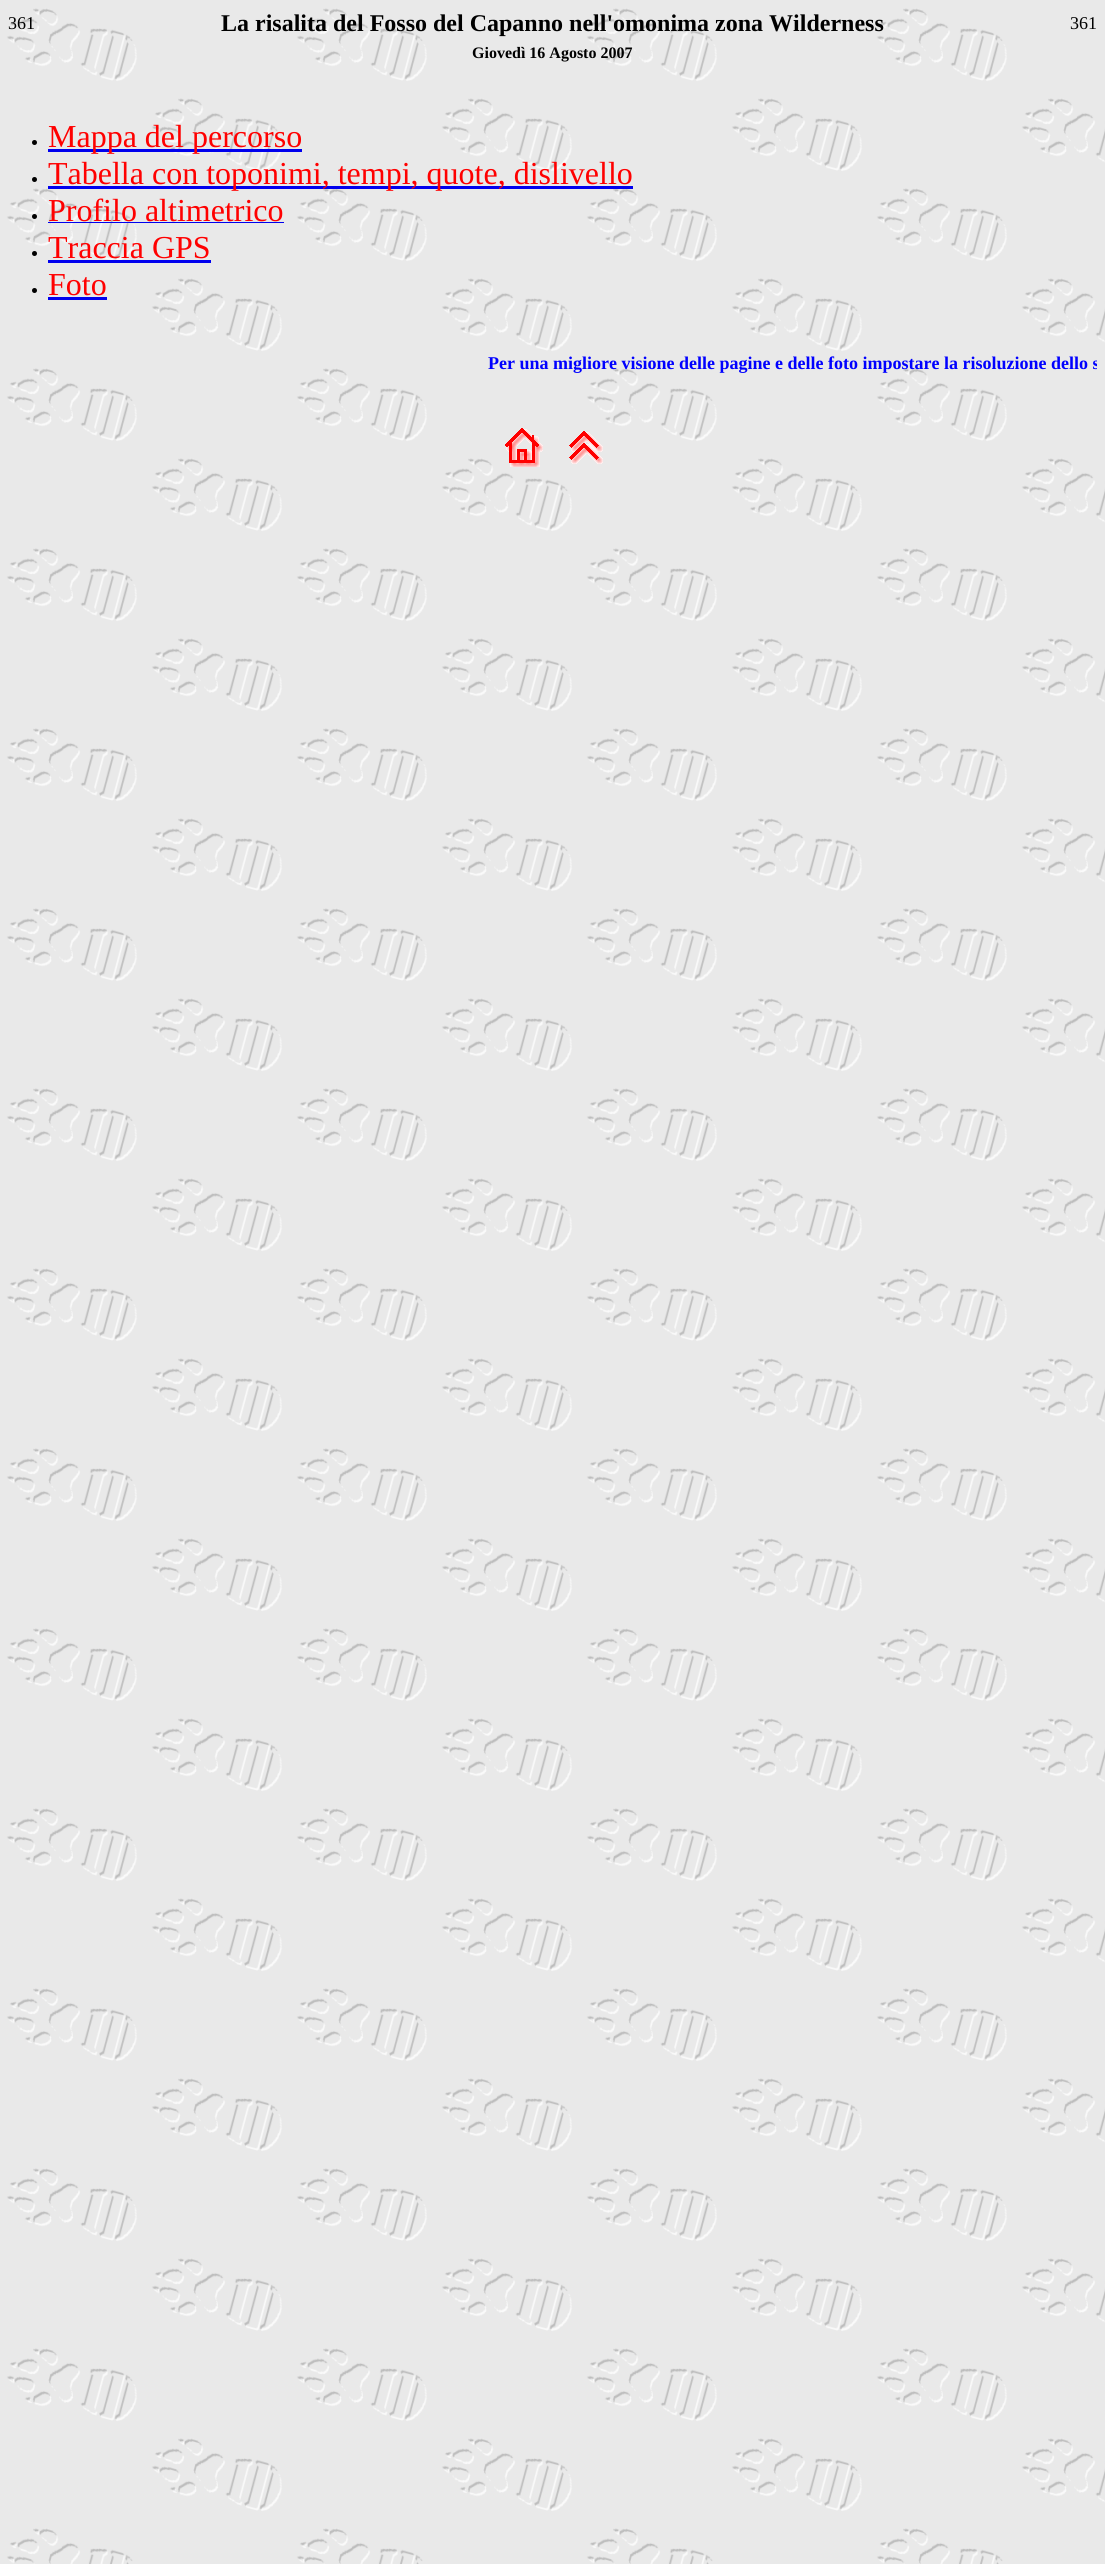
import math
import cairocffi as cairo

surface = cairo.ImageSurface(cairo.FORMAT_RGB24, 1105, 2564)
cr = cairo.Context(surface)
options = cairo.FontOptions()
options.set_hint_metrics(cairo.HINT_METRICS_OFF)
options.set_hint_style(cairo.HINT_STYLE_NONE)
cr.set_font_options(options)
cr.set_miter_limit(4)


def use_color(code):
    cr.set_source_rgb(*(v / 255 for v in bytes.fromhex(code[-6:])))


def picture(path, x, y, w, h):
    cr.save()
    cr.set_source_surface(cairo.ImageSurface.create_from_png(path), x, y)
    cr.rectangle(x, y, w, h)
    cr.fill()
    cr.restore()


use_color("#ffffff")
cr.paint()
picture("img1.png", 0, 0, 1105, 2564)
cr.select_font_face("Liberation Serif")
cr.set_font_size(18)
use_color("#000000")
cr.move_to(8, 29)
cr.show_text("361")
cr.select_font_face("Liberation Serif", cairo.FONT_SLANT_NORMAL, cairo.FONT_WEIGHT_BOLD)
cr.set_font_size(24)
cr.move_to(221, 31)
cr.show_text("La risalita del Fosso del Capanno nell'omonima zona Wilderness")
cr.select_font_face("Liberation Serif")
cr.set_font_size(18)
cr.move_to(1070, 29)
cr.show_text("361")
cr.select_font_face("Liberation Serif", cairo.FONT_SLANT_NORMAL, cairo.FONT_WEIGHT_BOLD)
cr.set_font_size(16)
cr.move_to(472, 58)
cr.show_text("Giovedì 16 Agosto 2007")
cr.new_path()
cr.arc(34.5, 142.5, 2.5, 0, 2 * math.pi)
cr.fill()
use_color("#0000ee")
cr.rectangle(48, 149, 254, 3)
cr.fill()
cr.select_font_face("Liberation Serif")
cr.set_font_size(32)
use_color("#ff0000")
cr.move_to(48, 147)
cr.show_text("Mappa del percorso")
use_color("#000000")
cr.new_path()
cr.arc(34.5, 179.5, 2.5, 0, 2 * math.pi)
cr.fill()
use_color("#0000ee")
cr.rectangle(48, 186, 585, 3)
cr.fill()
use_color("#ff0000")
cr.move_to(48, 184)
cr.show_text("Tabella con toponimi, tempi, quote, dislivello")
use_color("#000000")
cr.new_path()
cr.arc(34.5, 216.5, 2.5, 0, 2 * math.pi)
cr.fill()
use_color("#ff0000")
cr.move_to(48, 221)
cr.show_text("Profilo altimetrico")
use_color("#0000ee")
cr.rectangle(48, 222, 236, 1)
cr.fill()
use_color("#000000")
cr.arc(34.5, 253.5, 2.5, 0, 2 * math.pi)
cr.fill()
use_color("#ff0000")
cr.move_to(48, 258)
cr.show_text("Traccia GPS")
use_color("#0000ee")
cr.rectangle(48, 260, 163, 3)
cr.fill()
use_color("#000000")
cr.arc(34.5, 290.5, 2.5, 0, 2 * math.pi)
cr.fill()
use_color("#ff0000")
cr.move_to(48, 295)
cr.show_text("Foto")
use_color("#0000ee")
cr.rectangle(48, 297, 59, 3)
cr.fill()
cr.save()
cr.rectangle(8, 353, 1089, 21)
cr.clip()
cr.select_font_face("Liberation Serif", cairo.FONT_SLANT_NORMAL, cairo.FONT_WEIGHT_BOLD)
cr.set_font_size(18)
use_color("#0000ff")
cr.move_to(488, 369)
cr.show_text("Per una migliore visione delle pagine e delle foto impostare la risoluzione dello s")
cr.restore()
picture("img2.png", 505, 428, 38, 39)
picture("img3.png", 569, 431, 34, 33)
surface.write_to_png("result.png")
